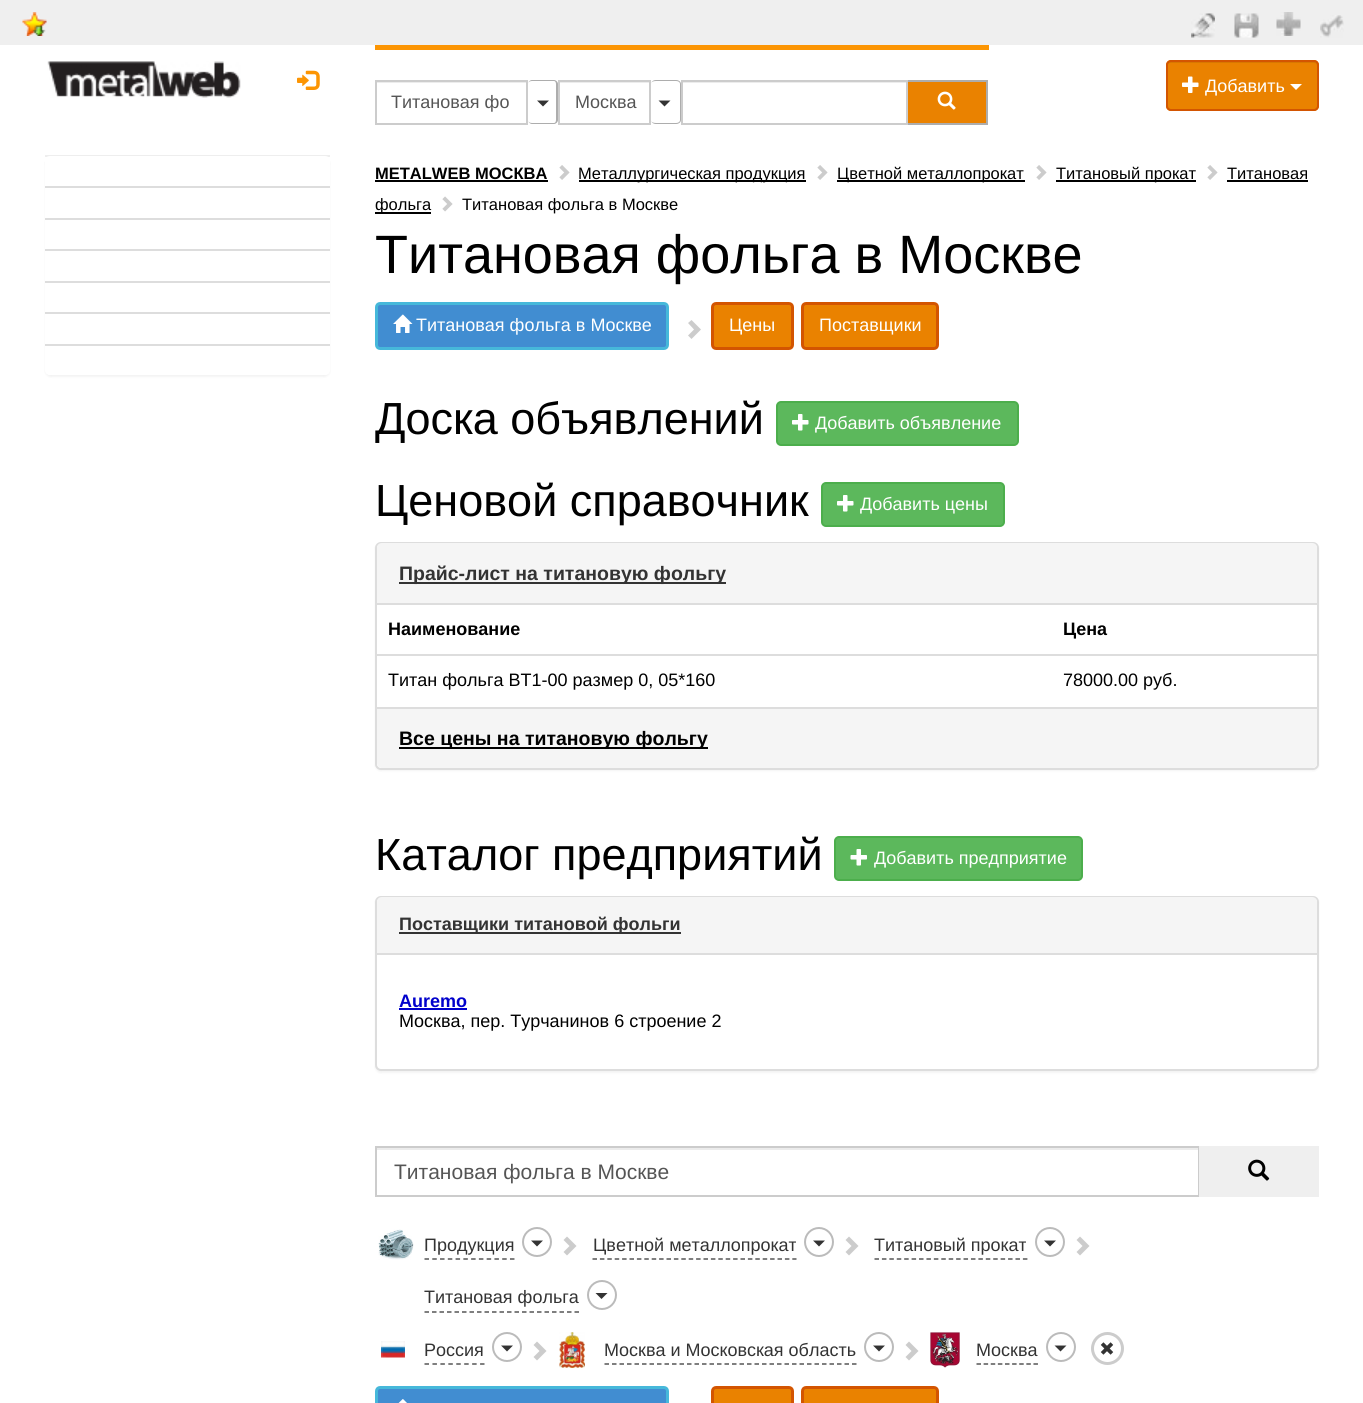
import math
import cairocffi as cairo

surface = cairo.ImageSurface(cairo.FORMAT_RGB24, 1363, 1403)
cr = cairo.Context(surface)
options = cairo.FontOptions()
options.set_hint_metrics(cairo.HINT_METRICS_OFF)
options.set_hint_style(cairo.HINT_STYLE_NONE)
cr.set_font_options(options)
cr.set_miter_limit(4)


def use_color(code):
    cr.set_source_rgb(*(v / 255 for v in bytes.fromhex(code[-6:])))


def round_rect(x, y, w, h, r):
    cr.new_sub_path()
    for i, (u, v) in enumerate([(x + w - r, y + h - r), (x + r, y + h - r), (x + r, y + r), (x + w - r, y + r)]):
        cr.arc(u, v, r, i * math.pi / 2, (i + 1) * math.pi / 2)
    cr.close_path()


def shadow(x, y, w, h, r, blur, alpha):
    cr.push_group_with_content(cairo.CONTENT_ALPHA)
    cr.set_operator(cairo.OPERATOR_SOURCE)
    for i in range(15, -16, -2):
        e = blur * i / 6
        if min(w, h) + 2 * e > 0:
            cr.set_source_rgba(0, 0, 0, alpha * math.erfc((i - 1) / 8.5) / 2)
            round_rect(x - e, y - e, w + 2 * e, h + 2 * e, max(0, min(r + e + blur * .6, min(w, h) / 2 + e)))
            cr.fill()
    cr.mask(cr.pop_group())


def picture(path, x, y, w, h):
    cr.save()
    cr.set_source_surface(cairo.ImageSurface.create_from_png(path), x, y)
    cr.rectangle(x, y, w, h)
    cr.fill()
    cr.restore()


use_color("#ffffff")
cr.paint()
use_color("#efefef")
cr.rectangle(0, 0, 1363, 45)
cr.fill()
picture("img1.png", 22, 12, 25, 24)
picture("img2.png", 1191, 13, 24, 25)
picture("img3.png", 1234, 13, 25, 25)
picture("img4.png", 1276, 12, 25, 24)
picture("img5.png", 1320, 15, 24, 23)
picture("img6.png", 47, 61, 194, 37)
picture("img7.png", 297, 70, 23, 20)
use_color("#ea8200")
round_rect(1166, 60, 153, 51, 5)
cr.fill()
use_color("#d87800")
cr.new_path()
cr.move_to(1170, 63)
cr.line_to(1314, 63)
cr.curve_to(1316, 63, 1317, 64, 1317, 66)
cr.curve_to(1317, 64, 1317, 63, 1315, 62)
cr.line_to(1194, 62)
cr.curve_to(1186, 62, 1167, 57, 1167, 66)
cr.curve_to(1167, 64, 1168, 63, 1170, 63)
cr.close_path()
cr.fill()
round_rect(1167, 61, 151, 49, 4)
use_color("#d35501")
cr.stroke()
picture("img8.png", 1182, 76, 17, 17)
cr.select_font_face("Liberation Sans")
cr.set_font_size(18)
use_color("#ffffff")
cr.move_to(1205, 92)
cr.show_text("Добавить")
cr.new_path()
cr.move_to(1290, 84)
cr.line_to(1302, 84)
cr.line_to(1296, 90)
cr.close_path()
cr.fill()
use_color("#fc9503")
cr.rectangle(375, 45, 614, 5)
cr.fill()
use_color("#ececec")
cr.rectangle(377, 82, 150, 1)
cr.fill()
cr.rectangle(376, 81, 151, 43)
use_color("#cccccc")
cr.stroke()
use_color("#555555")
cr.move_to(391, 108)
cr.show_text("Титановая фо")
use_color("#adadad")
cr.set_fill_rule(cairo.FILL_RULE_EVEN_ODD)
cr.new_path()
cr.move_to(532, 80)
cr.line_to(554, 80)
cr.curve_to(556, 80, 558, 82, 558, 84)
cr.line_to(558, 120)
cr.curve_to(558, 122, 556, 124, 554, 124)
cr.line_to(532, 124)
cr.curve_to(530, 124, 528, 122, 528, 120)
cr.line_to(528, 84)
cr.curve_to(528, 82, 530, 80, 532, 80)
cr.close_path()
cr.move_to(532, 81)
cr.line_to(554, 81)
cr.curve_to(555, 81, 556, 82, 556, 84)
cr.line_to(556, 120)
cr.curve_to(556, 122, 555, 123, 554, 123)
cr.line_to(532, 123)
cr.curve_to(530, 123, 528, 122, 528, 120)
cr.line_to(528, 84)
cr.curve_to(528, 82, 530, 81, 532, 81)
cr.close_path()
cr.fill()
use_color("#333333")
cr.set_fill_rule(cairo.FILL_RULE_WINDING)
cr.new_path()
cr.move_to(537, 100.5)
cr.line_to(549, 100.5)
cr.line_to(543, 106.5)
cr.close_path()
cr.fill()
use_color("#ececec")
cr.rectangle(560, 82, 90, 1)
cr.fill()
cr.rectangle(559, 81, 91, 43)
use_color("#cccccc")
cr.stroke()
use_color("#555555")
cr.move_to(575, 108)
cr.show_text("Москва")
use_color("#adadad")
cr.set_fill_rule(cairo.FILL_RULE_EVEN_ODD)
cr.new_path()
cr.move_to(656, 80)
cr.line_to(676, 80)
cr.curve_to(679, 80, 681, 82, 681, 84)
cr.line_to(681, 120)
cr.curve_to(681, 122, 679, 124, 676, 124)
cr.line_to(656, 124)
cr.curve_to(653, 124, 651, 122, 651, 120)
cr.line_to(651, 84)
cr.curve_to(651, 82, 653, 80, 656, 80)
cr.close_path()
cr.move_to(656, 81)
cr.line_to(676, 81)
cr.curve_to(678, 81, 680, 82, 680, 84)
cr.line_to(680, 120)
cr.curve_to(680, 122, 678, 123, 676, 123)
cr.line_to(656, 123)
cr.curve_to(653, 123, 651, 122, 651, 120)
cr.line_to(651, 84)
cr.curve_to(651, 82, 653, 81, 656, 81)
cr.close_path()
cr.fill()
use_color("#333333")
cr.set_fill_rule(cairo.FILL_RULE_WINDING)
cr.new_path()
cr.move_to(658.5, 100.5)
cr.line_to(670.5, 100.5)
cr.line_to(664.5, 106.5)
cr.close_path()
cr.fill()
use_color("#ececec")
cr.rectangle(683, 82, 223, 1)
cr.fill()
cr.rectangle(682, 81, 225, 43)
use_color("#cccccc")
cr.stroke()
use_color("#ea8200")
cr.rectangle(908, 82, 78, 41)
cr.fill()
use_color("#adadad")
cr.rectangle(908, 80, 79, 2)
cr.fill()
cr.rectangle(986, 80, 2, 45)
cr.fill()
cr.rectangle(908, 123, 79, 2)
cr.fill()
picture("img9.png", 937, 91, 19, 19)
cr.save()
cr.set_fill_rule(cairo.FILL_RULE_EVEN_ODD)
cr.new_path()
cr.move_to(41, 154)
cr.line_to(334, 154)
cr.line_to(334, 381)
cr.line_to(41, 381)
cr.close_path()
cr.move_to(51, 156)
cr.line_to(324, 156)
cr.curve_to(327.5, 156, 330, 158.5, 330, 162)
cr.line_to(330, 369)
cr.curve_to(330, 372.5, 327.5, 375, 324, 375)
cr.line_to(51, 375)
cr.curve_to(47.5, 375, 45, 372.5, 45, 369)
cr.line_to(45, 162)
cr.curve_to(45, 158.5, 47.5, 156, 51, 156)
cr.close_path()
cr.clip()
use_color("#000000")
shadow(45, 158, 285, 219, 6, 1, 0.05)
cr.restore()
use_color("#eeeeee")
cr.rectangle(45, 155, 285, 2)
cr.fill()
use_color("#ffffff")
cr.new_path()
cr.move_to(50, 156)
cr.line_to(325, 156)
cr.curve_to(328, 156, 330, 158, 330, 161)
cr.line_to(330, 188)
cr.line_to(45, 188)
cr.line_to(45, 161)
cr.curve_to(45, 158, 47, 156, 50, 156)
cr.close_path()
cr.fill()
use_color("#dddddd")
cr.rectangle(45, 186, 285, 2)
cr.fill()
cr.rectangle(45, 218, 285, 2)
cr.fill()
cr.rectangle(45, 249, 285, 2)
cr.fill()
cr.rectangle(45, 281, 285, 2)
cr.fill()
cr.rectangle(45, 312, 285, 2)
cr.fill()
use_color("#ffffff")
cr.new_path()
cr.move_to(45, 344)
cr.line_to(330, 344)
cr.line_to(330, 370)
cr.curve_to(330, 373, 328, 375, 325, 375)
cr.line_to(50, 375)
cr.curve_to(47, 375, 45, 373, 45, 370)
cr.close_path()
cr.fill()
use_color("#dddddd")
cr.rectangle(45, 344, 285, 2)
cr.fill()
cr.select_font_face("Liberation Sans", cairo.FONT_SLANT_NORMAL, cairo.FONT_WEIGHT_BOLD)
cr.set_font_size(16.5)
use_color("#000000")
cr.move_to(375, 179)
cr.show_text("METALWEB МОСКВА")
cr.rectangle(375, 180, 173, 2)
cr.fill()
picture("img10.png", 559, 165, 11, 15)
cr.rectangle(579, 180, 227, 2)
cr.fill()
cr.select_font_face("Liberation Sans")
cr.move_to(578, 179)
cr.show_text("Металлургическая продукция")
picture("img10.png", 817, 165, 11, 15)
cr.rectangle(837, 180, 188, 2)
cr.fill()
cr.move_to(837, 179)
cr.show_text("Цветной металлопрокат")
picture("img10.png", 1036, 165, 11, 15)
cr.rectangle(1056, 180, 140, 2)
cr.fill()
cr.move_to(1056, 179)
cr.show_text("Титановый прокат")
picture("img10.png", 1207, 165, 11, 15)
cr.move_to(1227, 179)
cr.show_text("Титановая")
cr.rectangle(1227, 180, 81, 2)
cr.fill()
cr.rectangle(375, 212, 56, 2)
cr.fill()
cr.move_to(375, 210)
cr.show_text("фольга")
picture("img11.png", 442, 196, 11, 16)
cr.move_to(462, 210)
cr.show_text("Титановая фольга в Москве")
cr.set_font_size(54)
cr.move_to(375, 273)
cr.show_text("Титановая фольга в Москве")
use_color("#418dd1")
round_rect(376.5, 303.5, 291, 45, 3.5)
cr.fill_preserve()
use_color("#46b8da")
cr.set_line_width(3)
cr.stroke()
picture("img12.png", 393, 314, 20, 19)
cr.set_font_size(18)
use_color("#ffffff")
cr.move_to(416, 331)
cr.show_text("Титановая фольга в Москве")
use_color("#cccccc")
cr.new_path()
cr.move_to(701, 329.5)
cr.line_to(691.5, 339)
cr.line_to(688, 335.5)
cr.line_to(694, 329.5)
cr.line_to(688, 323)
cr.line_to(691.5, 320)
cr.close_path()
cr.fill()
use_color("#ea8200")
round_rect(712.5, 303.5, 80, 45, 3.5)
cr.fill_preserve()
use_color("#d35501")
cr.stroke()
use_color("#ffffff")
cr.move_to(729, 331)
cr.show_text("Цены")
use_color("#ea8200")
round_rect(802.5, 303.5, 135, 45, 3.5)
cr.fill_preserve()
use_color("#d35501")
cr.stroke()
use_color("#ffffff")
cr.move_to(819, 331)
cr.show_text("Поставщики")
cr.set_font_size(45)
use_color("#000000")
cr.move_to(375, 434)
cr.show_text("Доска объявлений")
use_color("#5cb85c")
round_rect(777, 402, 241, 43, 4)
cr.fill_preserve()
use_color("#4cae4c")
cr.set_line_width(2)
cr.stroke()
picture("img13.png", 792, 414, 17, 17)
cr.set_font_size(18)
use_color("#ffffff")
cr.move_to(815, 429)
cr.show_text("Добавить объявление")
cr.set_font_size(45)
use_color("#000000")
cr.move_to(375, 516)
cr.show_text("Ценовой справочник")
use_color("#5cb85c")
round_rect(822, 483, 182, 43, 4)
cr.fill_preserve()
use_color("#4cae4c")
cr.stroke()
picture("img13.png", 837, 495, 17, 17)
cr.set_font_size(18)
use_color("#ffffff")
cr.move_to(860, 510)
cr.show_text("Добавить цены")
use_color("#000000")
shadow(375, 543, 944, 228, 6, 1, 0.05)
use_color("#ffffff")
round_rect(376, 543, 942, 226, 5)
cr.fill_preserve()
use_color("#dddddd")
cr.stroke()
use_color("#f5f5f5")
cr.new_path()
cr.move_to(382, 543)
cr.line_to(1312, 543)
cr.curve_to(1315, 543, 1317, 545, 1317, 548)
cr.line_to(1317, 605)
cr.line_to(377, 605)
cr.line_to(377, 548)
cr.curve_to(377, 545, 379, 543, 382, 543)
cr.close_path()
cr.fill()
use_color("#dddddd")
cr.rectangle(377, 603, 940, 2)
cr.fill()
use_color("#333333")
cr.rectangle(399, 582, 327, 2)
cr.fill()
cr.select_font_face("Liberation Sans", cairo.FONT_SLANT_NORMAL, cairo.FONT_WEIGHT_BOLD)
cr.set_font_size(19.5)
cr.move_to(399, 580)
cr.show_text("Прайс-лист на титановую фольгу")
cr.set_font_size(18)
use_color("#000000")
cr.move_to(388, 635)
cr.show_text("Наименование")
cr.move_to(1063, 635)
cr.show_text("Цена")
cr.select_font_face("Liberation Sans")
cr.move_to(388, 686)
cr.show_text("Титан фольга ВТ1-00 размер 0, 05*160")
use_color("#dddddd")
cr.rectangle(375, 654, 944, 2)
cr.fill()
use_color("#000000")
cr.move_to(1063, 686)
cr.show_text("78000.00 руб.")
use_color("#f5f5f5")
cr.new_path()
cr.move_to(377, 707)
cr.line_to(1317, 707)
cr.line_to(1317, 763)
cr.curve_to(1317, 766, 1315, 768, 1312, 768)
cr.line_to(382, 768)
cr.curve_to(379, 768, 377, 766, 377, 763)
cr.close_path()
cr.fill()
use_color("#dddddd")
cr.rectangle(377, 707, 940, 2)
cr.fill()
use_color("#000000")
cr.rectangle(399, 747, 309, 2)
cr.fill()
cr.select_font_face("Liberation Sans", cairo.FONT_SLANT_NORMAL, cairo.FONT_WEIGHT_BOLD)
cr.set_font_size(19.5)
cr.move_to(399, 745)
cr.show_text("Все цены на титановую фольгу")
cr.select_font_face("Liberation Sans")
cr.set_font_size(45)
cr.move_to(375, 870)
cr.show_text("Каталог предприятий")
use_color("#5cb85c")
round_rect(835, 837, 247, 43, 4)
cr.fill_preserve()
use_color("#4cae4c")
cr.stroke()
picture("img14.png", 850, 849, 17, 17)
cr.set_font_size(18)
use_color("#ffffff")
cr.move_to(874, 864)
cr.show_text("Добавить предприятие")
use_color("#000000")
shadow(375, 897, 944, 176, 6, 1, 0.05)
use_color("#ffffff")
round_rect(376, 897, 942, 173, 5)
cr.fill_preserve()
use_color("#dddddd")
cr.stroke()
use_color("#f5f5f5")
cr.new_path()
cr.move_to(382, 897)
cr.line_to(1312, 897)
cr.curve_to(1315, 897, 1317, 899, 1317, 902)
cr.line_to(1317, 954)
cr.line_to(377, 954)
cr.line_to(377, 902)
cr.curve_to(377, 899, 379, 897, 382, 897)
cr.close_path()
cr.fill()
use_color("#dddddd")
cr.rectangle(377, 953, 940, 2)
cr.fill()
use_color("#333333")
cr.rectangle(399, 932, 282, 2)
cr.fill()
cr.select_font_face("Liberation Sans", cairo.FONT_SLANT_NORMAL, cairo.FONT_WEIGHT_BOLD)
cr.move_to(399, 930)
cr.show_text("Поставщики титановой фольги")
use_color("#0000cc")
cr.move_to(399, 1007)
cr.show_text("Auremo")
cr.rectangle(399, 1008, 68, 2)
cr.fill()
cr.select_font_face("Liberation Sans")
use_color("#000000")
cr.move_to(399, 1027)
cr.show_text("Москва, пер. Турчанинов 6 строение 2")
use_color("#ececec")
cr.rectangle(377, 1148, 822, 2)
cr.fill()
cr.rectangle(376, 1147, 823, 49)
use_color("#cccccc")
cr.stroke()
cr.set_font_size(21)
use_color("#555555")
cr.move_to(394, 1179)
cr.show_text("Титановая фольга в Москве")
use_color("#efefef")
cr.rectangle(1199, 1146, 120, 51)
cr.fill()
picture("img15.png", 1248, 1159, 22, 22)
picture("img16.png", 378, 1229, 36, 31)
cr.new_path()
cr.move_to(424.5, 1259)
cr.line_to(514.5, 1259)
use_color("#555555")
cr.set_line_width(1.5)
cr.set_dash([4.5, 3.27])
cr.stroke()
cr.set_font_size(18)
use_color("#333333")
cr.move_to(424, 1251)
cr.show_text("Продукция")
cr.new_path()
cr.arc(537, 1242, 14, 0, 2 * math.pi)
use_color("#bbbbbb")
cr.set_line_width(2)
cr.set_dash([])
cr.stroke()
use_color("#333333")
cr.new_path()
cr.move_to(531, 1240.5)
cr.line_to(543, 1240.5)
cr.line_to(537, 1246.5)
cr.close_path()
cr.fill()
use_color("#cccccc")
cr.new_path()
cr.move_to(576.5, 1246)
cr.line_to(567, 1255.5)
cr.line_to(563.5, 1252)
cr.line_to(569.5, 1246)
cr.line_to(563.5, 1240)
cr.line_to(567, 1236.5)
cr.close_path()
cr.fill()
cr.new_path()
cr.move_to(592.5, 1259)
cr.line_to(796.5, 1259)
use_color("#555555")
cr.set_line_width(1.5)
cr.set_dash([4.5, 2.9])
cr.stroke()
use_color("#333333")
cr.move_to(593, 1251)
cr.show_text("Цветной металлопрокат")
cr.new_path()
cr.arc(819, 1242, 14, 0, 2 * math.pi)
use_color("#bbbbbb")
cr.set_line_width(2)
cr.set_dash([])
cr.stroke()
use_color("#333333")
cr.new_path()
cr.move_to(813, 1240.5)
cr.line_to(825, 1240.5)
cr.line_to(819, 1246.5)
cr.close_path()
cr.fill()
use_color("#cccccc")
cr.new_path()
cr.move_to(858.5, 1246)
cr.line_to(849, 1255.5)
cr.line_to(845.5, 1252)
cr.line_to(851.5, 1246)
cr.line_to(845.5, 1240)
cr.line_to(849, 1236.5)
cr.close_path()
cr.fill()
cr.new_path()
cr.move_to(874.5, 1259)
cr.line_to(1027.5, 1259)
use_color("#555555")
cr.set_line_width(1.5)
cr.set_dash([4.5, 2.92])
cr.stroke()
use_color("#333333")
cr.move_to(874, 1251)
cr.show_text("Титановый прокат")
cr.new_path()
cr.arc(1050, 1242, 14, 0, 2 * math.pi)
use_color("#bbbbbb")
cr.set_line_width(2)
cr.set_dash([])
cr.stroke()
use_color("#333333")
cr.new_path()
cr.move_to(1044, 1240.5)
cr.line_to(1056, 1240.5)
cr.line_to(1050, 1246.5)
cr.close_path()
cr.fill()
use_color("#cccccc")
cr.new_path()
cr.move_to(1089.5, 1246)
cr.line_to(1080, 1255.5)
cr.line_to(1076.5, 1252)
cr.line_to(1082.5, 1246)
cr.line_to(1076.5, 1240)
cr.line_to(1080, 1236.5)
cr.close_path()
cr.fill()
cr.new_path()
cr.move_to(424.5, 1312)
cr.line_to(579, 1312)
use_color("#555555")
cr.set_line_width(1.5)
cr.set_dash([4.5, 3])
cr.stroke()
use_color("#333333")
cr.move_to(424, 1303)
cr.show_text("Титановая фольга")
cr.new_path()
cr.arc(602, 1295, 14, 0, 2 * math.pi)
use_color("#bbbbbb")
cr.set_line_width(2)
cr.set_dash([])
cr.stroke()
use_color("#333333")
cr.new_path()
cr.move_to(595.5, 1293)
cr.line_to(607.5, 1293)
cr.line_to(601.5, 1299)
cr.close_path()
cr.fill()
picture("img17.png", 381, 1341, 24, 17)
cr.new_path()
cr.move_to(424.5, 1364)
cr.line_to(484.5, 1364)
use_color("#555555")
cr.set_line_width(1.5)
cr.set_dash([4.5, 3.44])
cr.stroke()
use_color("#333333")
cr.move_to(424, 1356)
cr.show_text("Россия")
cr.new_path()
cr.arc(507, 1347, 14, 0, 2 * math.pi)
use_color("#bbbbbb")
cr.set_line_width(2)
cr.set_dash([])
cr.stroke()
use_color("#333333")
cr.new_path()
cr.move_to(501, 1345.5)
cr.line_to(513, 1345.5)
cr.line_to(507, 1351.5)
cr.close_path()
cr.fill()
use_color("#cccccc")
cr.new_path()
cr.move_to(546.5, 1351)
cr.line_to(537, 1360.5)
cr.line_to(533.5, 1357)
cr.line_to(539.5, 1351)
cr.line_to(533.5, 1345)
cr.line_to(537, 1341.5)
cr.close_path()
cr.fill()
picture("img18.png", 559, 1332, 26, 36)
cr.new_path()
cr.move_to(604.5, 1364)
cr.line_to(856.5, 1364)
use_color("#555555")
cr.set_line_width(1.5)
cr.set_dash([4.5, 3])
cr.stroke()
use_color("#333333")
cr.move_to(604, 1356)
cr.show_text("Москва и Московская область")
cr.new_path()
cr.arc(879, 1347, 14, 0, 2 * math.pi)
use_color("#bbbbbb")
cr.set_line_width(2)
cr.set_dash([])
cr.stroke()
use_color("#333333")
cr.new_path()
cr.move_to(873, 1345.5)
cr.line_to(885, 1345.5)
cr.line_to(879, 1351.5)
cr.close_path()
cr.fill()
use_color("#cccccc")
cr.new_path()
cr.move_to(918.5, 1351)
cr.line_to(909, 1360.5)
cr.line_to(905.5, 1357)
cr.line_to(911.5, 1351)
cr.line_to(905.5, 1345)
cr.line_to(909, 1341.5)
cr.close_path()
cr.fill()
picture("img19.png", 930, 1332, 30, 36)
cr.new_path()
cr.move_to(976.5, 1364)
cr.line_to(1038, 1364)
use_color("#555555")
cr.set_line_width(1.5)
cr.set_dash([4.5, 2.62])
cr.stroke()
use_color("#333333")
cr.move_to(976, 1356)
cr.show_text("Москва")
cr.new_path()
cr.arc(1061, 1347, 14, 0, 2 * math.pi)
use_color("#bbbbbb")
cr.set_line_width(2)
cr.set_dash([])
cr.stroke()
use_color("#333333")
cr.new_path()
cr.move_to(1054.5, 1345.5)
cr.line_to(1066.5, 1345.5)
cr.line_to(1060.5, 1351.5)
cr.close_path()
cr.fill()
cr.arc(1107.5, 1348.5, 15, 0, 2 * math.pi)
use_color("#cccccc")
cr.set_line_width(3)
cr.stroke()
picture("img20.png", 1100, 1342, 14, 13)
use_color("#418dd1")
round_rect(376.5, 1387.5, 291, 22, 3.5)
cr.fill_preserve()
use_color("#46b8da")
cr.stroke()
picture("img21.png", 398, 1399, 9, 4)
use_color("#ea8200")
round_rect(712.5, 1387.5, 80, 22, 3.5)
cr.fill_preserve()
use_color("#d35501")
cr.stroke()
use_color("#ea8200")
round_rect(802.5, 1387.5, 135, 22, 3.5)
cr.fill_preserve()
use_color("#d35501")
cr.stroke()
surface.write_to_png("result.png")
